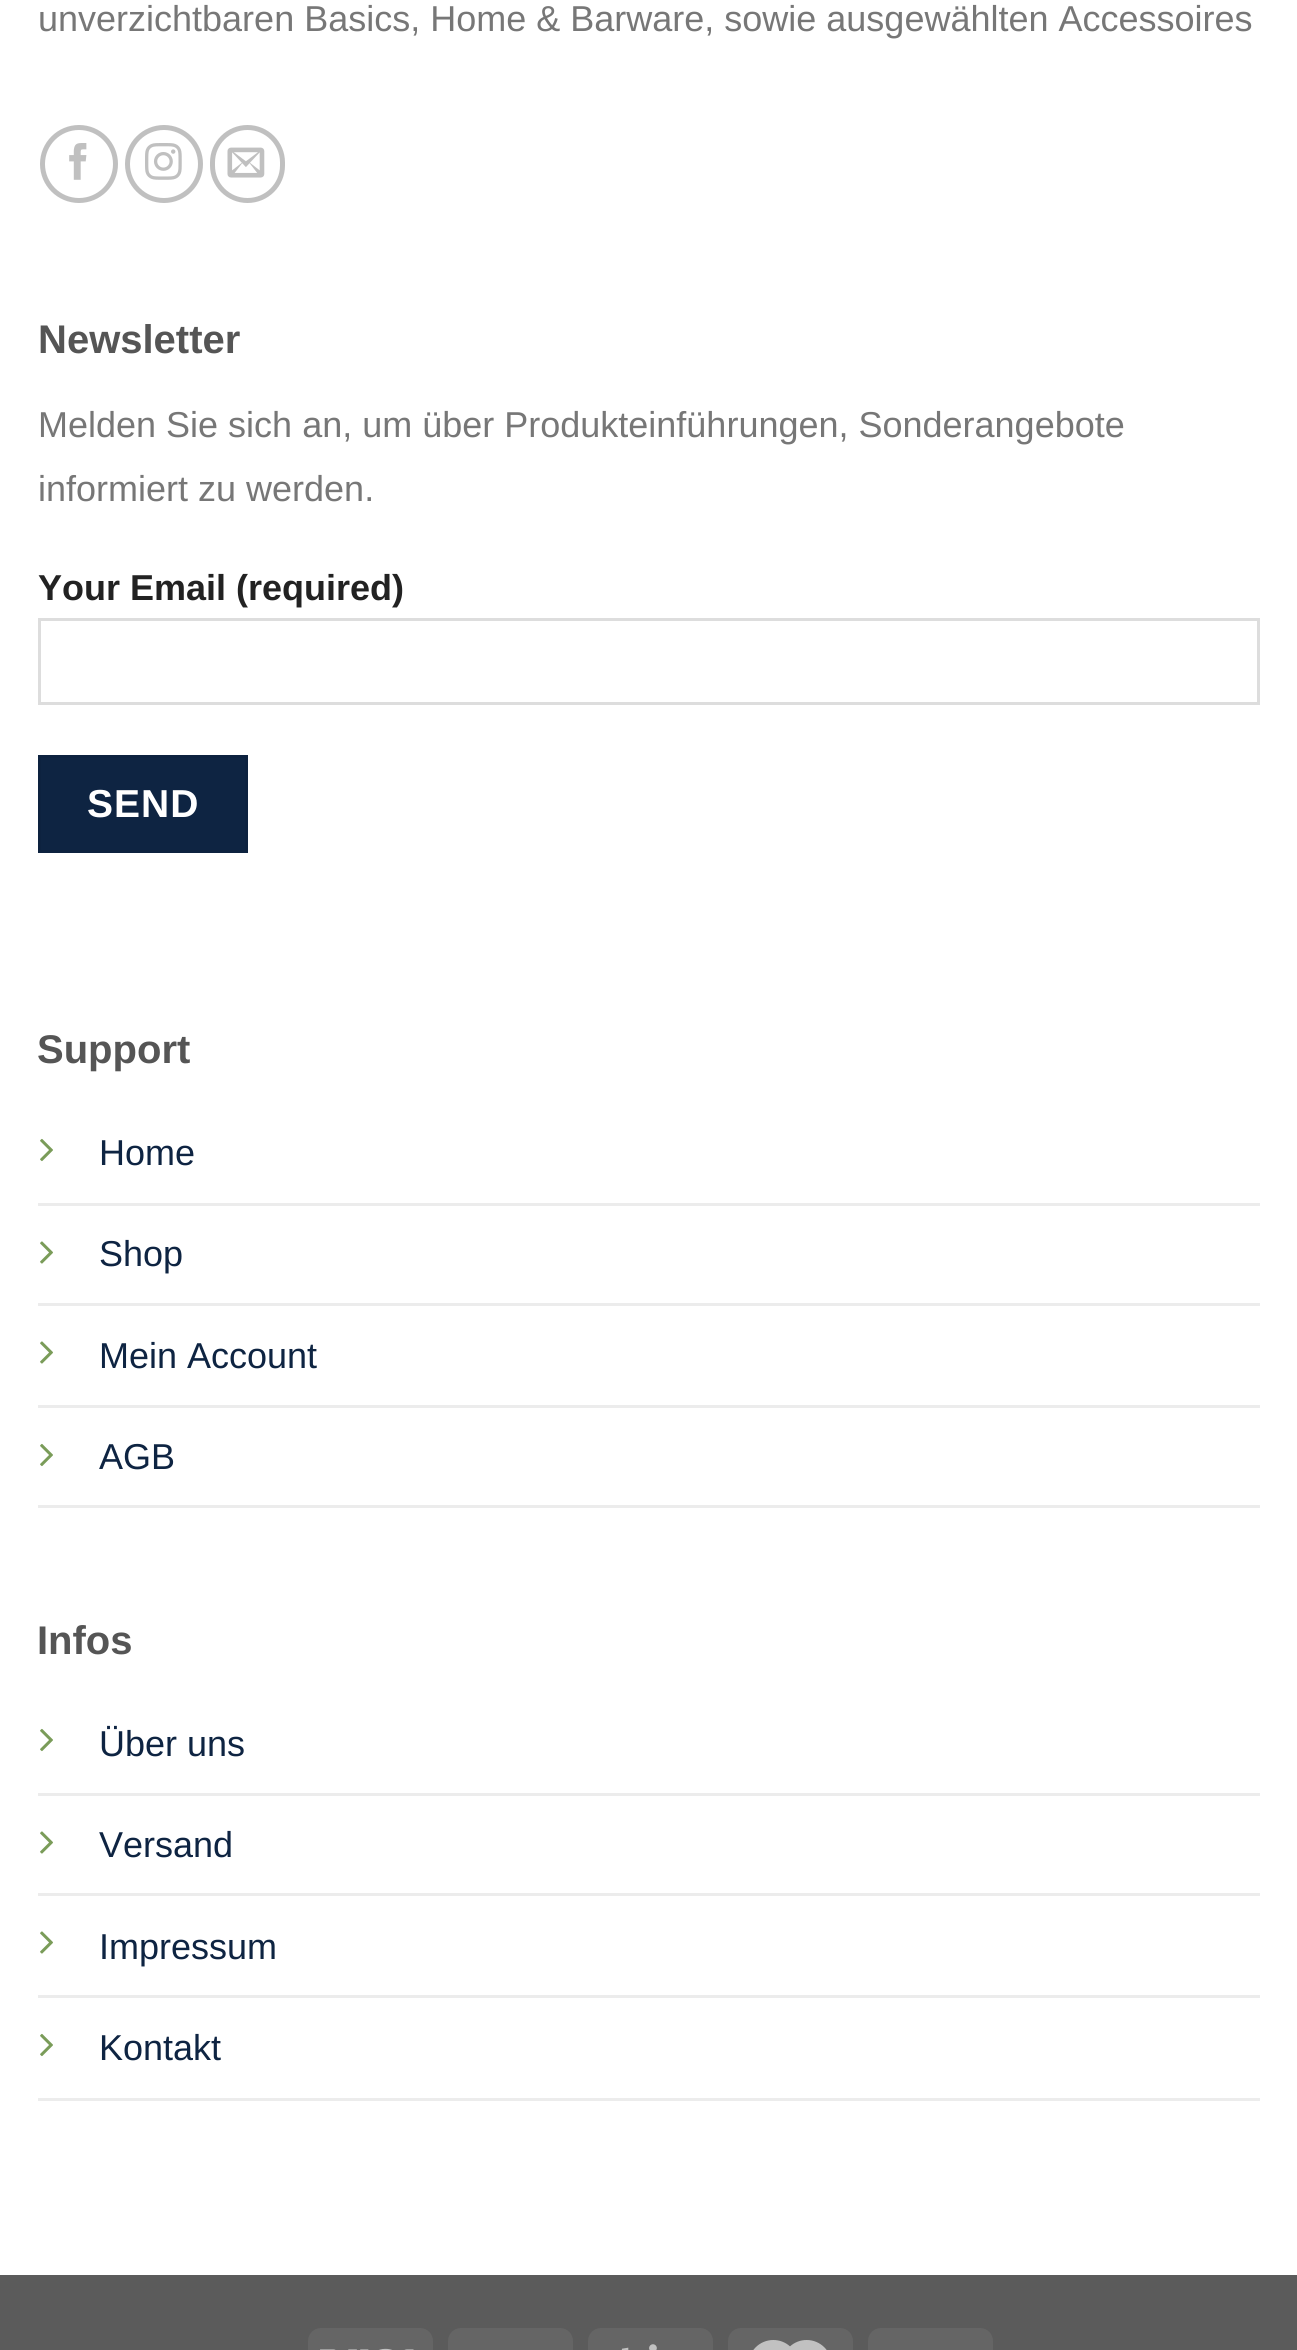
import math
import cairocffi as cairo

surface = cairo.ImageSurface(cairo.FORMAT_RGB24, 1297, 2350)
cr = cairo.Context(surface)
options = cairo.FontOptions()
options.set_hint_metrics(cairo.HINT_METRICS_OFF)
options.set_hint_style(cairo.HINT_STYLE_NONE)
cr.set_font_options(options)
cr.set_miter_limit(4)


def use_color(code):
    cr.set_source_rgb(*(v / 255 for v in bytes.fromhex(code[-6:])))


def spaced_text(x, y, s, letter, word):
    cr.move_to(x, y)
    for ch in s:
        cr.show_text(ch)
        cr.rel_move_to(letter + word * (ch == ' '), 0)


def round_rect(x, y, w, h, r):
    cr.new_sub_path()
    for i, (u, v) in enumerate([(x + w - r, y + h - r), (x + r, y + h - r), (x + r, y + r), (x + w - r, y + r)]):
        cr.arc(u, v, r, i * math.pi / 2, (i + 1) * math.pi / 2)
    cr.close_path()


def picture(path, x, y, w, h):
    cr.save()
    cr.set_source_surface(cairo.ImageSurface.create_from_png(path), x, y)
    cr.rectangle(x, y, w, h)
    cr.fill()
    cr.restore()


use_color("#ffffff")
cr.paint()
cr.select_font_face("Liberation Sans")
cr.set_font_size(36)
use_color("#777777")
cr.move_to(38, 31)
cr.show_text("unverzichtbaren Basics, Home & Barware, sowie ausgewählten Accessoires")
cr.new_path()
cr.arc(79, 164, 36.5, 0, 2 * math.pi)
use_color("#c0c0c0")
cr.set_line_width(5)
cr.stroke()
picture("img1.png", 69, 143, 18, 37)
cr.arc(164, 164, 36.5, 0, 2 * math.pi)
cr.stroke()
picture("img2.png", 145, 143, 37, 37)
round_rect(212.5, 127.5, 70, 73, 35)
cr.stroke()
picture("img3.png", 227, 147, 38, 31)
cr.select_font_face("Liberation Sans", cairo.FONT_SLANT_NORMAL, cairo.FONT_WEIGHT_BOLD)
cr.set_font_size(40)
use_color("#555555")
cr.move_to(38, 353)
cr.show_text("Newsletter")
cr.select_font_face("Liberation Sans")
cr.set_font_size(36)
use_color("#777777")
cr.move_to(38, 437)
cr.show_text("Melden Sie sich an, um über Produkteinführungen, Sonderangebote")
cr.move_to(38, 501)
cr.show_text("informiert zu werden.")
cr.select_font_face("Liberation Sans", cairo.FONT_SLANT_NORMAL, cairo.FONT_WEIGHT_BOLD)
use_color("#222222")
cr.move_to(38, 600)
cr.show_text("Your Email (required)")
cr.rectangle(39.5, 619.5, 1219, 84)
use_color("#dddddd")
cr.set_line_width(3)
cr.stroke()
use_color("#0e2442")
cr.rectangle(39.5, 756.5, 207, 95)
cr.fill_preserve()
use_color("#0d223f")
cr.stroke()
cr.set_font_size(39)
use_color("#ffffff")
spaced_text(87, 817, "SEND", 1, 0)
cr.set_font_size(40)
use_color("#555555")
cr.move_to(37, 1063)
cr.show_text("Support")
use_color("#ececec")
cr.rectangle(38, 1203, 1222, 3)
cr.fill()
picture("img4.png", 40, 1138, 13, 24)
cr.select_font_face("Liberation Sans")
cr.set_font_size(36)
use_color("#0e2442")
cr.move_to(99, 1165)
cr.show_text("Home")
use_color("#ececec")
cr.rectangle(38, 1303, 1222, 3)
cr.fill()
picture("img5.png", 40, 1241, 13, 23)
use_color("#0e2442")
cr.move_to(99, 1266)
cr.show_text("Shop")
use_color("#ececec")
cr.rectangle(38, 1405, 1222, 3)
cr.fill()
picture("img5.png", 40, 1341, 13, 23)
use_color("#0e2442")
cr.move_to(99, 1368)
cr.show_text("Mein Account")
use_color("#ececec")
cr.rectangle(38, 1505, 1222, 3)
cr.fill()
picture("img4.png", 40, 1443, 13, 24)
use_color("#0e2442")
cr.move_to(99, 1469)
cr.show_text("AGB")
cr.select_font_face("Liberation Sans", cairo.FONT_SLANT_NORMAL, cairo.FONT_WEIGHT_BOLD)
cr.set_font_size(40)
use_color("#555555")
cr.move_to(37, 1654)
cr.show_text("Infos")
use_color("#ececec")
cr.rectangle(38, 1793, 1222, 3)
cr.fill()
picture("img4.png", 40, 1728, 13, 24)
cr.select_font_face("Liberation Sans")
cr.set_font_size(36)
use_color("#0e2442")
cr.move_to(99, 1756)
cr.show_text("Über uns")
use_color("#ececec")
cr.rectangle(38, 1893, 1222, 3)
cr.fill()
picture("img5.png", 40, 1831, 13, 23)
use_color("#0e2442")
cr.move_to(99, 1857)
cr.show_text("Versand")
use_color("#ececec")
cr.rectangle(38, 1995, 1222, 3)
cr.fill()
picture("img5.png", 40, 1931, 13, 23)
use_color("#0e2442")
cr.move_to(99, 1959)
cr.show_text("Impressum")
use_color("#ececec")
cr.rectangle(38, 2098, 1222, 3)
cr.fill()
picture("img4.png", 40, 2033, 13, 24)
use_color("#0e2442")
cr.move_to(99, 2060)
cr.show_text("Kontakt")
use_color("#5b5b5b")
cr.rectangle(0, 2275, 1297, 75)
cr.fill()
use_color("#656565")
round_rect(308, 2328, 125, 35, 13)
cr.fill()
picture("img6.png", 320, 2348, 94, 2)
round_rect(448, 2328, 125, 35, 13)
cr.fill()
round_rect(588, 2328, 125, 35, 13)
cr.fill()
picture("img7.png", 621, 2344, 36, 6)
round_rect(728, 2328, 125, 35, 13)
cr.fill()
picture("img8.png", 753, 2340, 74, 10)
round_rect(868, 2328, 125, 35, 13)
cr.fill()
surface.write_to_png("result.png")
